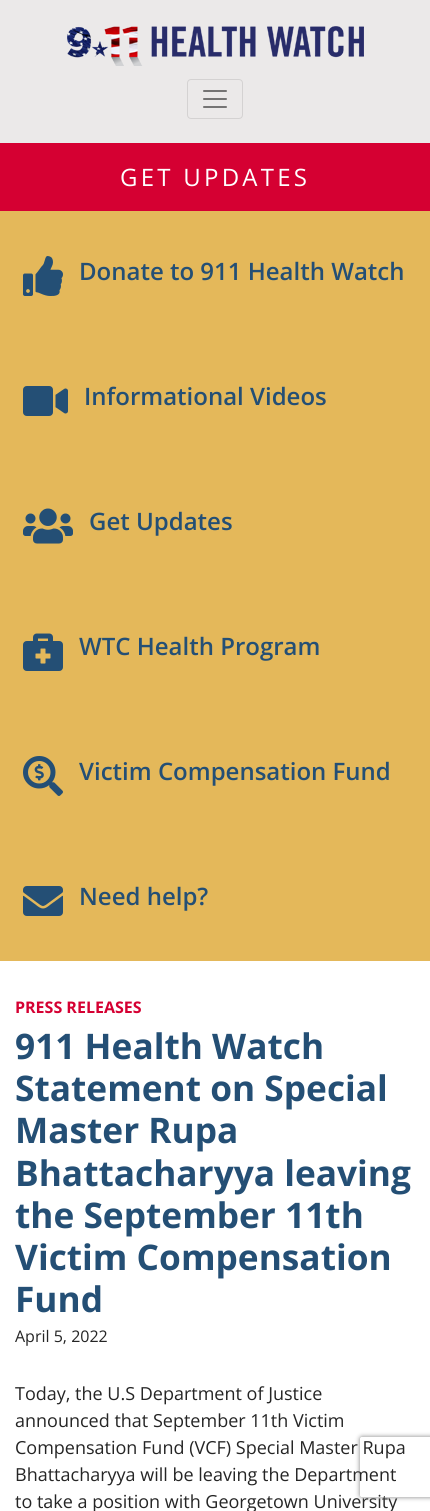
import math
import cairocffi as cairo

surface = cairo.ImageSurface(cairo.FORMAT_RGB24, 430, 1511)
cr = cairo.Context(surface)
options = cairo.FontOptions()
options.set_hint_metrics(cairo.HINT_METRICS_OFF)
options.set_hint_style(cairo.HINT_STYLE_NONE)
cr.set_font_options(options)
cr.set_miter_limit(4)


def use_color(code):
    cr.set_source_rgb(*(v / 255 for v in bytes.fromhex(code[-6:])))


def spaced_text(x, y, s, letter, word):
    cr.move_to(x, y)
    for ch in s:
        cr.show_text(ch)
        cr.rel_move_to(letter + word * (ch == ' '), 0)


def round_rect(x, y, w, h, r):
    cr.new_sub_path()
    for i, (u, v) in enumerate([(x + w - r, y + h - r), (x + r, y + h - r), (x + r, y + r), (x + w - r, y + r)]):
        cr.arc(u, v, r, i * math.pi / 2, (i + 1) * math.pi / 2)
    cr.close_path()


def shadow(x, y, w, h, r, blur, alpha):
    cr.push_group_with_content(cairo.CONTENT_ALPHA)
    cr.set_operator(cairo.OPERATOR_SOURCE)
    for i in range(15, -16, -2):
        e = blur * i / 6
        if min(w, h) + 2 * e > 0:
            cr.set_source_rgba(0, 0, 0, alpha * math.erfc((i - 1) / 8.5) / 2)
            round_rect(x - e, y - e, w + 2 * e, h + 2 * e, max(0, min(r + e + blur * .6, min(w, h) / 2 + e)))
            cr.fill()
    cr.mask(cr.pop_group())


def picture(path, x, y, w, h):
    cr.save()
    cr.set_source_surface(cairo.ImageSurface.create_from_png(path), x, y)
    cr.rectangle(x, y, w, h)
    cr.fill()
    cr.restore()


use_color("#ffffff")
cr.paint()
use_color("#ebe9e9")
cr.rectangle(0, 0, 430, 143)
cr.fill()
picture("img1.png", 67, 26, 297, 40)
round_rect(187.5, 79.5, 55, 39, 3.5)
use_color("#d4d2d2")
cr.set_line_width(1)
cr.stroke()
picture("img2.png", 203, 90, 24, 18)
use_color("#d50032")
cr.rectangle(0, 143, 430, 68)
cr.fill()
cr.select_font_face("Open Sans")
cr.set_font_size(24)
use_color("#ffffff")
spaced_text(120, 186, "GET UPDATES", 3.25, 0)
use_color("#e4b85a")
cr.rectangle(0, 211, 430, 750)
cr.fill()
picture("img3.png", 23, 256, 40, 40)
cr.select_font_face("Open Sans SemiBold")
use_color("#244f75")
cr.move_to(79, 280)
cr.show_text("Donate to 911 Health Watch")
picture("img4.png", 23, 386, 45, 30)
cr.move_to(84, 405)
cr.show_text("Informational Videos")
picture("img5.png", 23, 508, 50, 36)
cr.move_to(89, 530)
cr.show_text("Get Updates")
picture("img6.png", 23, 633, 40, 38)
cr.move_to(79, 655)
cr.show_text("WTC Health Program")
picture("img7.png", 23, 756, 40, 40)
cr.move_to(79, 780)
cr.show_text("Victim Compensation Fund")
picture("img8.png", 23, 886, 40, 30)
cr.move_to(79, 905)
cr.show_text("Need help?")
cr.select_font_face("Open Sans", cairo.FONT_SLANT_NORMAL, cairo.FONT_WEIGHT_BOLD)
cr.set_font_size(16)
use_color("#d50032")
cr.move_to(15, 1013)
cr.show_text("PRESS RELEASES")
cr.set_font_size(35.25)
use_color("#244f75")
cr.move_to(15, 1059)
cr.show_text("911 Health Watch")
cr.move_to(15, 1101)
cr.show_text("Statement on Special")
cr.move_to(15, 1143)
cr.show_text("Master Rupa")
cr.move_to(15, 1186)
cr.show_text("Bhattacharyya leaving")
cr.move_to(15, 1228)
cr.show_text("the September 11th")
cr.move_to(15, 1270)
cr.show_text("Victim Compensation")
cr.move_to(15, 1312)
cr.show_text("Fund")
cr.select_font_face("Open Sans")
cr.set_font_size(16)
use_color("#252525")
cr.move_to(15, 1342)
cr.show_text("April 5, 2022")
cr.set_font_size(18)
cr.move_to(15, 1400)
cr.show_text("Today, the U.S Department of Justice")
cr.move_to(15, 1427)
cr.show_text("announced that September 11th Victim")
cr.move_to(15, 1454)
cr.show_text("Compensation Fund (VCF) Special Master Rupa")
cr.move_to(15, 1481)
cr.show_text("Bhattacharyya will be leaving the Department")
cr.move_to(15, 1508)
cr.show_text("to take a position with Georgetown University")
cr.save()
cr.set_fill_rule(cairo.FILL_RULE_EVEN_ODD)
cr.new_path()
cr.move_to(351, 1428)
cr.line_to(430, 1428)
cr.line_to(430, 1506)
cr.line_to(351, 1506)
cr.close_path()
cr.move_to(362, 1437)
cr.line_to(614, 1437)
cr.curve_to(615, 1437, 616, 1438, 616, 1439)
cr.line_to(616, 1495)
cr.curve_to(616, 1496, 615, 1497, 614, 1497)
cr.line_to(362, 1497)
cr.curve_to(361, 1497, 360, 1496, 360, 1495)
cr.line_to(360, 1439)
cr.curve_to(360, 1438, 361, 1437, 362, 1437)
cr.close_path()
cr.clip()
use_color("#808080")
shadow(360, 1437, 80, 60, 2, 2.5, 1)
cr.restore()
surface.write_to_png("result.png")
